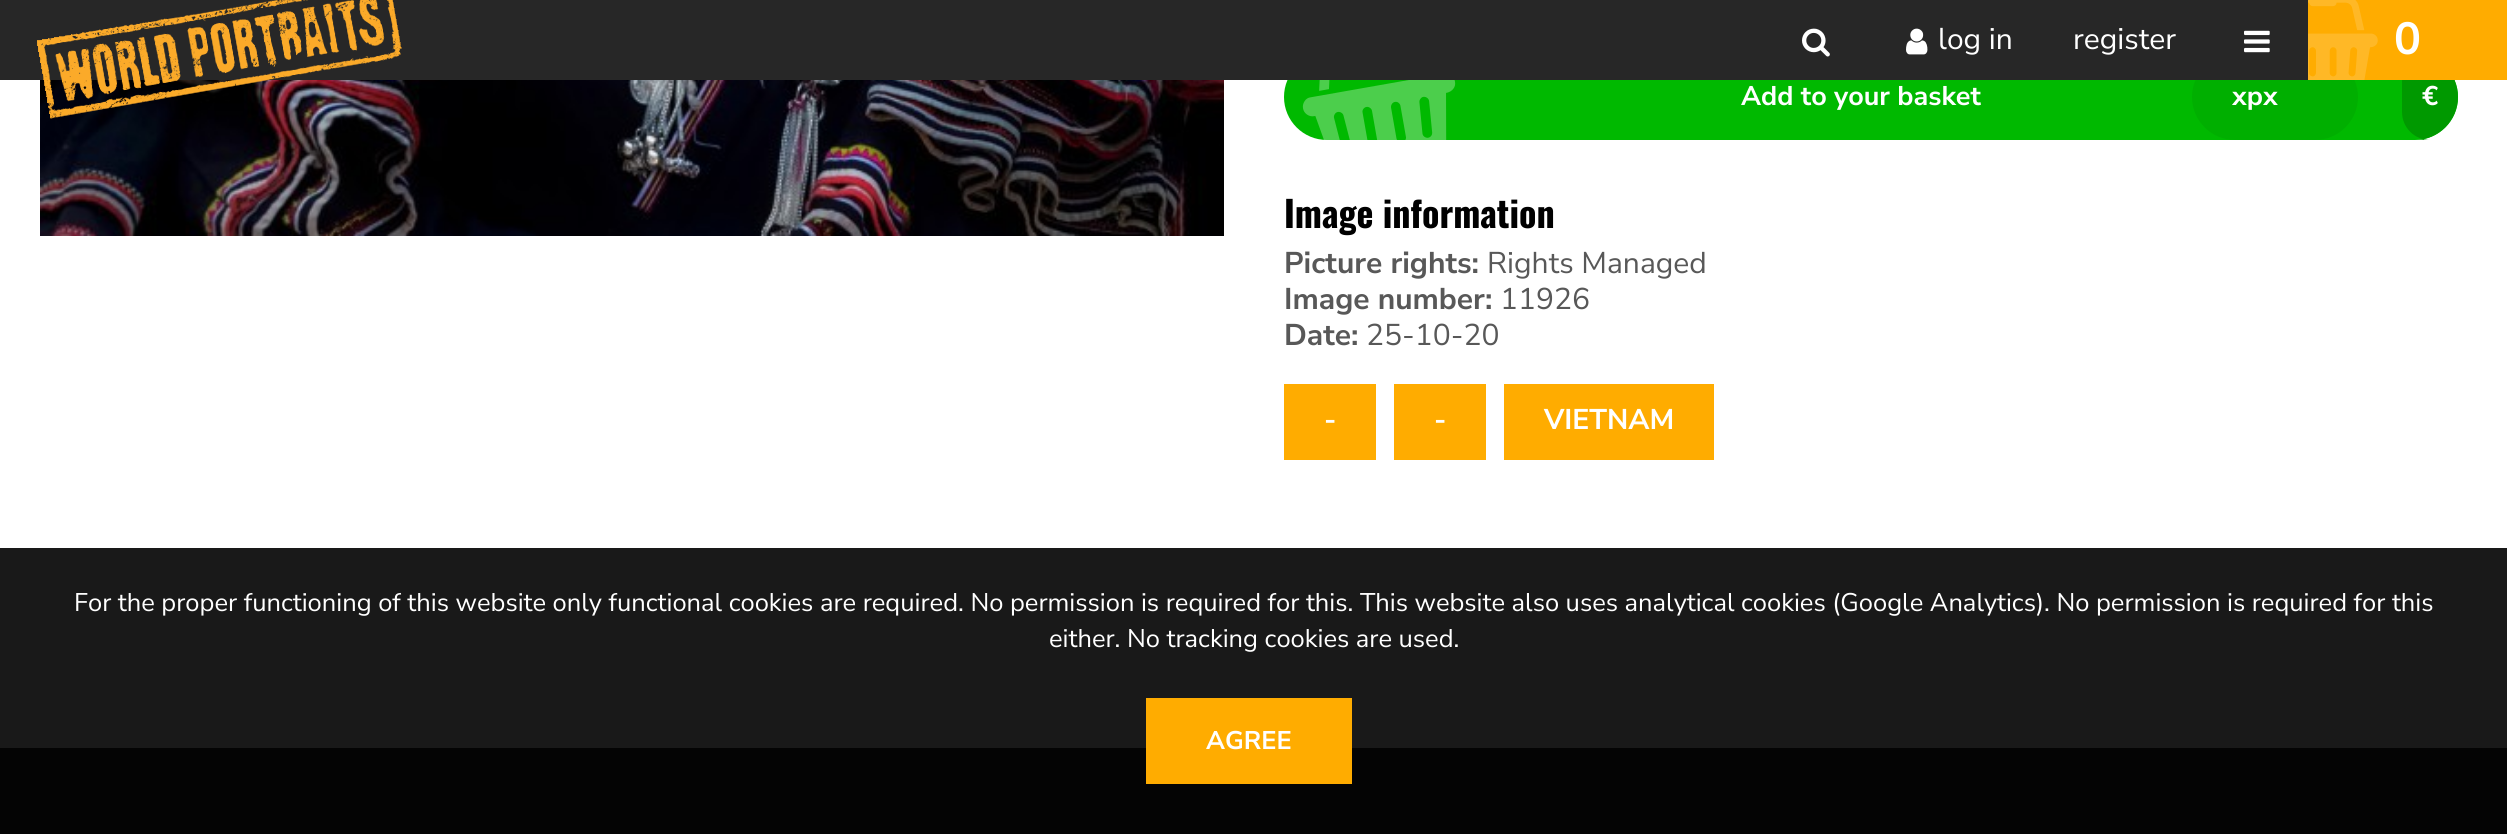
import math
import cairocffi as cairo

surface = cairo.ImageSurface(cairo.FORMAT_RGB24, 2507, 834)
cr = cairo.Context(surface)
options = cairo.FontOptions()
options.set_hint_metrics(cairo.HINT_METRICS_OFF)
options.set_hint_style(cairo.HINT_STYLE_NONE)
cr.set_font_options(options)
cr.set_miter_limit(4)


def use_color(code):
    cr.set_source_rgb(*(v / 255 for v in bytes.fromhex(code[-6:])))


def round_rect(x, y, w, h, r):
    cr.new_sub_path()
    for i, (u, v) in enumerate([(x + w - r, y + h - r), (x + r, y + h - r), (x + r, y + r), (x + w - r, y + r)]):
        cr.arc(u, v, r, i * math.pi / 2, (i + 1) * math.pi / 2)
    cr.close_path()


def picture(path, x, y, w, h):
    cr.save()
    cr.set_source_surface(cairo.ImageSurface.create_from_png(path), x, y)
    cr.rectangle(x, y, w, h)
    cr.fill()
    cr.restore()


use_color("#ffffff")
cr.paint()
use_color("#191919")
cr.rectangle(0, 548, 2507, 200)
cr.fill()
use_color("#00b900")
round_rect(1284, 54, 1174, 86, 43)
cr.fill()
use_color("#00af00")
round_rect(2192, 54, 166, 86, 43)
cr.fill()
use_color("#272727")
cr.rectangle(0, 0, 2308, 80)
cr.fill()
picture("img6.png", 40, 80, 1184, 156)
picture("img1.png", 37, 0, 365, 119)
picture("img2.png", 1802, 28, 28, 29)
picture("img3.png", 1906, 28, 22, 27)
cr.select_font_face("Nunito Sans")
cr.set_font_size(30)
use_color("#ffffff")
cr.move_to(1938, 49)
cr.show_text("log in")
cr.move_to(2073, 49)
cr.show_text("register")
picture("img4.png", 2244, 30, 26, 23)
use_color("#009900")
cr.new_path()
cr.move_to(2430, 54)
cr.line_to(2415, 54)
cr.curve_to(2438.5, 54, 2458, 73.5, 2458, 97)
cr.curve_to(2458, 120.5, 2438.5, 140, 2415, 140)
cr.line_to(2430, 140)
cr.curve_to(2414.5, 140, 2402, 127.5, 2402, 112)
cr.line_to(2402, 82)
cr.curve_to(2402, 66.5, 2414.5, 54, 2430, 54)
cr.close_path()
cr.fill()
use_color("#ffac00")
cr.rectangle(2308, 0, 199, 80)
cr.fill()
picture("img5.png", 2308, 0, 70, 80)
cr.select_font_face("Nunito Sans", cairo.FONT_SLANT_NORMAL, cairo.FONT_WEIGHT_BOLD)
cr.set_font_size(45)
use_color("#ffffff")
cr.move_to(2394, 54)
cr.show_text("0")
picture("img7.png", 1302, 80, 154, 60)
cr.set_font_size(27)
cr.move_to(1741, 105)
cr.show_text("Add to your basket")
cr.move_to(2232, 105)
cr.show_text("xpx")
cr.move_to(2422, 105)
cr.show_text("€")
cr.select_font_face("Oswald", cairo.FONT_SLANT_NORMAL, cairo.FONT_WEIGHT_BOLD)
cr.set_font_size(36)
use_color("#000000")
cr.move_to(1284, 228)
cr.show_text("Image information")
cr.select_font_face("Nunito Sans", cairo.FONT_SLANT_NORMAL, cairo.FONT_WEIGHT_BOLD)
cr.set_font_size(30)
use_color("#585858")
cr.move_to(1284, 273)
cr.show_text("Picture rights:")
cr.select_font_face("Nunito Sans")
cr.move_to(1487, 273)
cr.show_text("Rights Managed")
cr.select_font_face("Nunito Sans", cairo.FONT_SLANT_NORMAL, cairo.FONT_WEIGHT_BOLD)
cr.move_to(1284, 309)
cr.show_text("Image number:")
cr.select_font_face("Nunito Sans")
cr.move_to(1500, 309)
cr.show_text("11926")
cr.select_font_face("Nunito Sans", cairo.FONT_SLANT_NORMAL, cairo.FONT_WEIGHT_BOLD)
cr.move_to(1284, 345)
cr.show_text("Date:")
cr.select_font_face("Nunito Sans")
cr.move_to(1366, 345)
cr.show_text("25-10-20")
use_color("#ffac00")
cr.rectangle(1284, 384, 92, 76)
cr.fill()
cr.select_font_face("Nunito Sans", cairo.FONT_SLANT_NORMAL, cairo.FONT_WEIGHT_BOLD)
cr.set_font_size(28.5)
use_color("#ffffff")
cr.move_to(1324, 429)
cr.show_text("-")
use_color("#ffac00")
cr.rectangle(1394, 384, 92, 76)
cr.fill()
use_color("#ffffff")
cr.move_to(1434, 429)
cr.show_text("-")
use_color("#ffac00")
cr.rectangle(1504, 384, 210, 76)
cr.fill()
use_color("#ffffff")
cr.move_to(1544, 429)
cr.show_text("VIETNAM")
cr.select_font_face("Nunito Sans")
cr.set_font_size(25.5)
cr.move_to(74, 611)
cr.show_text("For the proper functioning of this website only functional cookies are required. No permission is required for this. This website also uses analytical cookies (Google Analytics). No permission is required for this")
cr.move_to(1049, 647)
cr.show_text("either. No tracking cookies are used.")
use_color("#040404")
cr.rectangle(0, 748, 2507, 86)
cr.fill()
use_color("#ffac00")
cr.rectangle(1146, 698, 206, 86)
cr.fill()
cr.select_font_face("Nunito Sans", cairo.FONT_SLANT_NORMAL, cairo.FONT_WEIGHT_BOLD)
use_color("#ffffff")
cr.move_to(1206, 749)
cr.show_text("AGREE")
surface.write_to_png("result.png")
